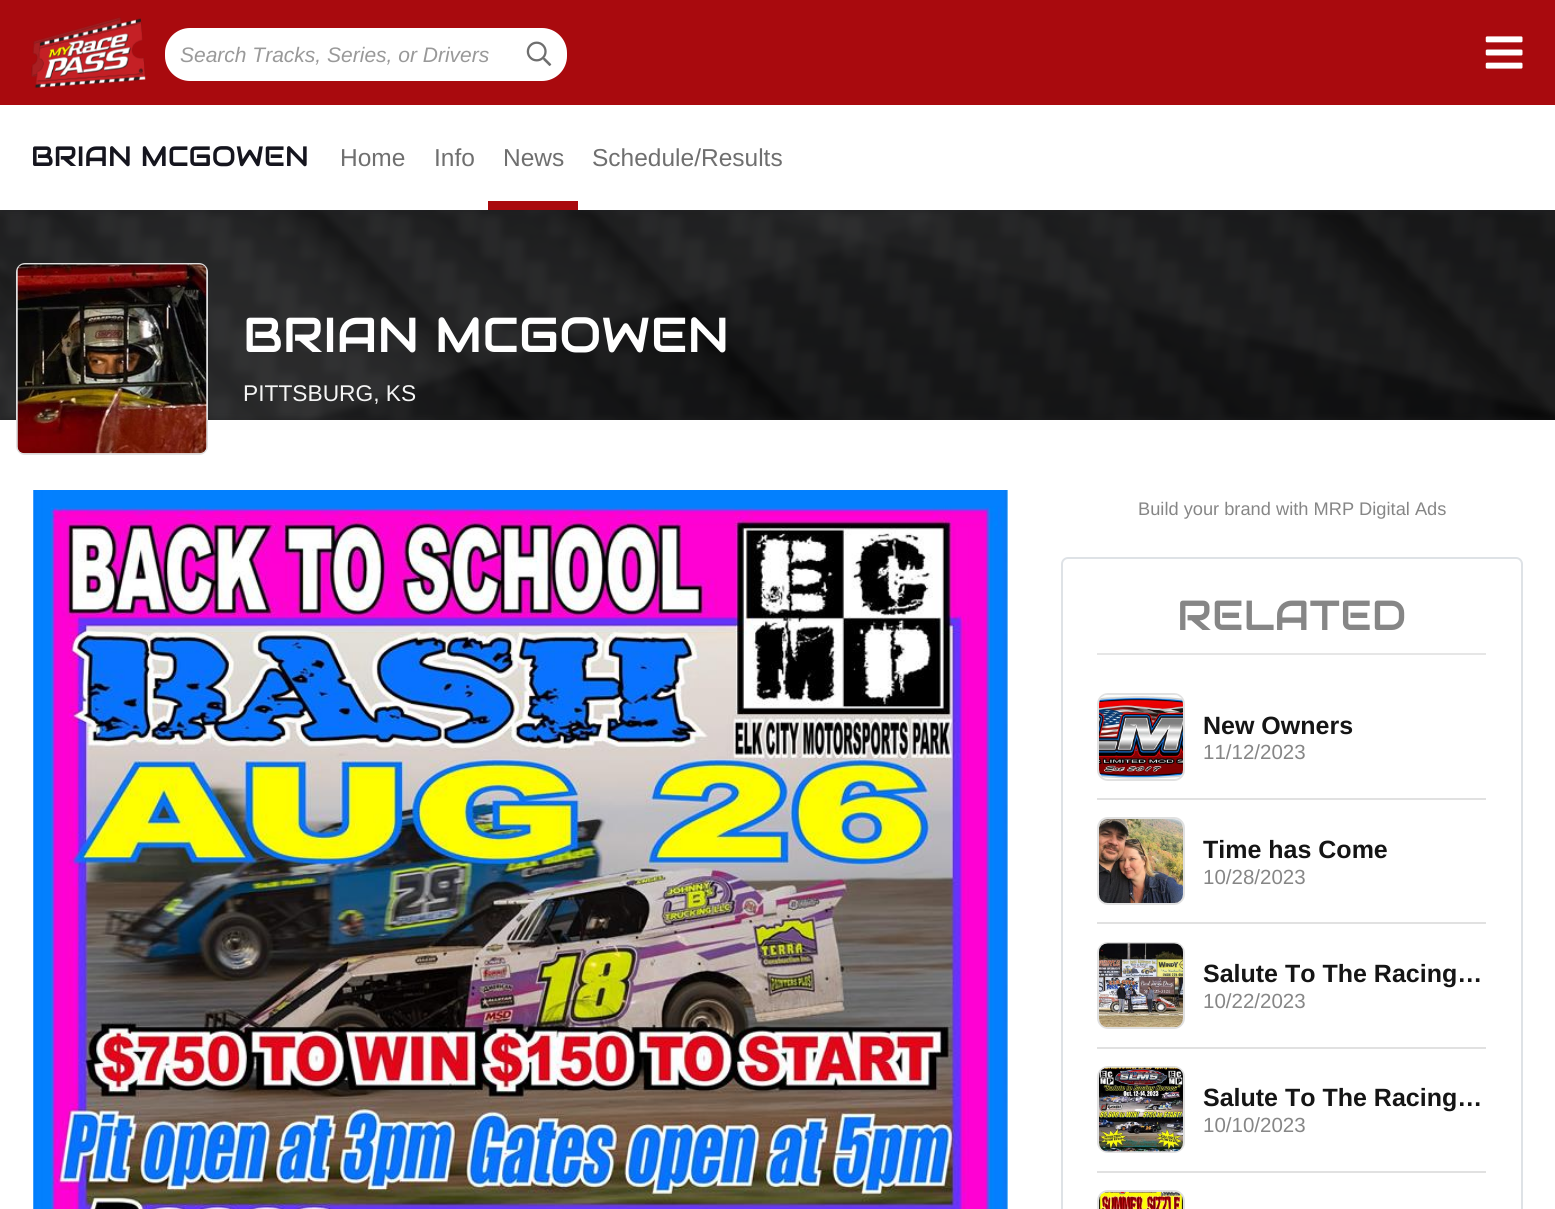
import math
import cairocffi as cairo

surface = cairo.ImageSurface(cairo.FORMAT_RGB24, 1555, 1209)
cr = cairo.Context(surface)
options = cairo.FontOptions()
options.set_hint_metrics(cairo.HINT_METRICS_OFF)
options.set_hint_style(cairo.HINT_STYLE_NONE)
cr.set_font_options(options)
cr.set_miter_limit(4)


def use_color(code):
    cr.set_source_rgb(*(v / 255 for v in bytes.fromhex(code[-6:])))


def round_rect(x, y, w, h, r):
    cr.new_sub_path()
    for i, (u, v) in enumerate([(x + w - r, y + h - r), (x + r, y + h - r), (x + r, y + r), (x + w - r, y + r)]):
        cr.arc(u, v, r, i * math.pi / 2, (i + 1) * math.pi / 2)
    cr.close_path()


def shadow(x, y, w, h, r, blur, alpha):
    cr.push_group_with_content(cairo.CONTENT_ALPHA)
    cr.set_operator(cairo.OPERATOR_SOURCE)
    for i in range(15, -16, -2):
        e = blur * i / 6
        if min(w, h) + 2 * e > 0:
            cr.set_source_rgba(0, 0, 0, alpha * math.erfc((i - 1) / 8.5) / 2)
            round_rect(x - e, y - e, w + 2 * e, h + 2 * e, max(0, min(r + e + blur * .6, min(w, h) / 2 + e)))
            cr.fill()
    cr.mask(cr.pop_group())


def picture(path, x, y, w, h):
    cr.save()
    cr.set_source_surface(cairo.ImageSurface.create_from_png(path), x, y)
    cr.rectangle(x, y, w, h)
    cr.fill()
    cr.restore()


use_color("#ffffff")
cr.paint()
picture("img4.png", 0, 210, 1555, 210)
cr.save()
cr.rectangle(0, 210, 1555, 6)
cr.clip()
use_color("#1f1f21")
shadow(0, 107, 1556, 105, 0, 2.5, 0.5)
cr.restore()
use_color("#a90a0e")
cr.rectangle(0, 0, 1555, 105)
cr.fill()
picture("img1.png", 31, 17, 115, 71)
use_color("#ffffff")
round_rect(166, 29, 400, 51, 24)
cr.fill_preserve()
cr.stroke()
cr.select_font_face("Liberation Sans", cairo.FONT_SLANT_ITALIC)
cr.set_font_size(21)
use_color("#999999")
cr.move_to(180, 62)
cr.show_text("Search Tracks, Series, or Drivers")
picture("img2.png", 526, 41, 26, 25)
picture("img3.png", 1485, 36, 38, 33)
cr.select_font_face("Audiowide")
cr.set_font_size(28)
use_color("#15151e")
cr.move_to(31, 166)
cr.show_text("BRIAN MCGOWEN")
cr.select_font_face("Liberation Sans")
cr.set_font_size(24.5)
use_color("#6f6f6f")
cr.move_to(340, 166)
cr.show_text("Home")
cr.move_to(434, 166)
cr.show_text("Info")
cr.move_to(503, 166)
cr.show_text("News")
use_color("#a90a0e")
cr.rectangle(488, 201, 90, 9)
cr.fill()
use_color("#6f6f6f")
cr.move_to(592, 166)
cr.show_text("Schedule/Results")
use_color("#1f1f21")
shadow(0, 418, 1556, 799, 0, 2.5, 0.35)
use_color("#ffffff")
cr.rectangle(0, 420, 1555, 789)
cr.fill()
round_rect(17, 264, 190, 190, 8)
use_color("#e1e1e1")
cr.stroke()
picture("img5.png", 17, 264, 190, 190)
cr.select_font_face("Audiowide")
cr.set_font_size(49)
use_color("#ffffff")
cr.move_to(243, 352)
cr.show_text("BRIAN MCGOWEN")
cr.select_font_face("Liberation Sans")
cr.set_font_size(22.75)
use_color("#f5f5f5")
cr.move_to(243, 401)
cr.show_text("PITTSBURG, KS")
picture("img6.png", 33, 490, 975, 719)
cr.set_font_size(18.25)
use_color("#868686")
cr.move_to(1138, 515)
cr.show_text("Build your brand with MRP Digital Ads")
round_rect(1062, 558, 460, 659, 6)
use_color("#dee2e6")
cr.stroke()
cr.select_font_face("Audiowide")
cr.set_font_size(42)
use_color("#868686")
cr.move_to(1177, 630)
cr.show_text("RELATED")
use_color("#e6e6e6")
cr.rectangle(1097, 653, 389, 2)
cr.fill()
use_color("#e1e1e1")
cr.rectangle(1097, 798, 389, 2)
cr.fill()
round_rect(1098, 694, 86, 86, 10)
cr.stroke()
picture("img7.png", 1099, 695, 84, 84)
cr.select_font_face("Liberation Sans", cairo.FONT_SLANT_NORMAL, cairo.FONT_WEIGHT_BOLD)
cr.set_font_size(25)
use_color("#151515")
cr.move_to(1203, 734)
cr.show_text("New Owners")
cr.select_font_face("Liberation Sans")
cr.set_font_size(20.5)
use_color("#868686")
cr.move_to(1203, 759)
cr.show_text("11/12/2023")
use_color("#e1e1e1")
cr.rectangle(1097, 922, 389, 2)
cr.fill()
round_rect(1098, 818, 86, 86, 10)
cr.stroke()
picture("img8.png", 1099, 819, 84, 84)
cr.select_font_face("Liberation Sans", cairo.FONT_SLANT_NORMAL, cairo.FONT_WEIGHT_BOLD)
cr.set_font_size(25)
use_color("#151515")
cr.move_to(1203, 858)
cr.show_text("Time has Come")
cr.select_font_face("Liberation Sans")
cr.set_font_size(20.5)
use_color("#868686")
cr.move_to(1203, 884)
cr.show_text("10/28/2023")
use_color("#e1e1e1")
cr.rectangle(1097, 1047, 389, 2)
cr.fill()
round_rect(1098, 943, 86, 85, 10)
cr.stroke()
picture("img9.png", 1099, 943, 84, 85)
cr.select_font_face("Liberation Sans", cairo.FONT_SLANT_NORMAL, cairo.FONT_WEIGHT_BOLD)
cr.set_font_size(25)
use_color("#151515")
cr.move_to(1203, 982)
cr.show_text("Salute To The Racing…")
cr.select_font_face("Liberation Sans")
cr.set_font_size(20.5)
use_color("#868686")
cr.move_to(1203, 1008)
cr.show_text("10/22/2023")
use_color("#e1e1e1")
cr.rectangle(1097, 1171, 389, 2)
cr.fill()
round_rect(1098, 1067, 86, 85, 10)
cr.stroke()
picture("img10.png", 1099, 1067, 84, 85)
cr.select_font_face("Liberation Sans", cairo.FONT_SLANT_NORMAL, cairo.FONT_WEIGHT_BOLD)
cr.set_font_size(25)
use_color("#151515")
cr.move_to(1203, 1106)
cr.show_text("Salute To The Racing…")
cr.select_font_face("Liberation Sans")
cr.set_font_size(20.5)
use_color("#868686")
cr.move_to(1203, 1132)
cr.show_text("10/10/2023")
round_rect(1098, 1191, 86, 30, 10)
use_color("#e1e1e1")
cr.stroke()
picture("img11.png", 1099, 1191, 84, 18)
surface.write_to_png("result.png")
